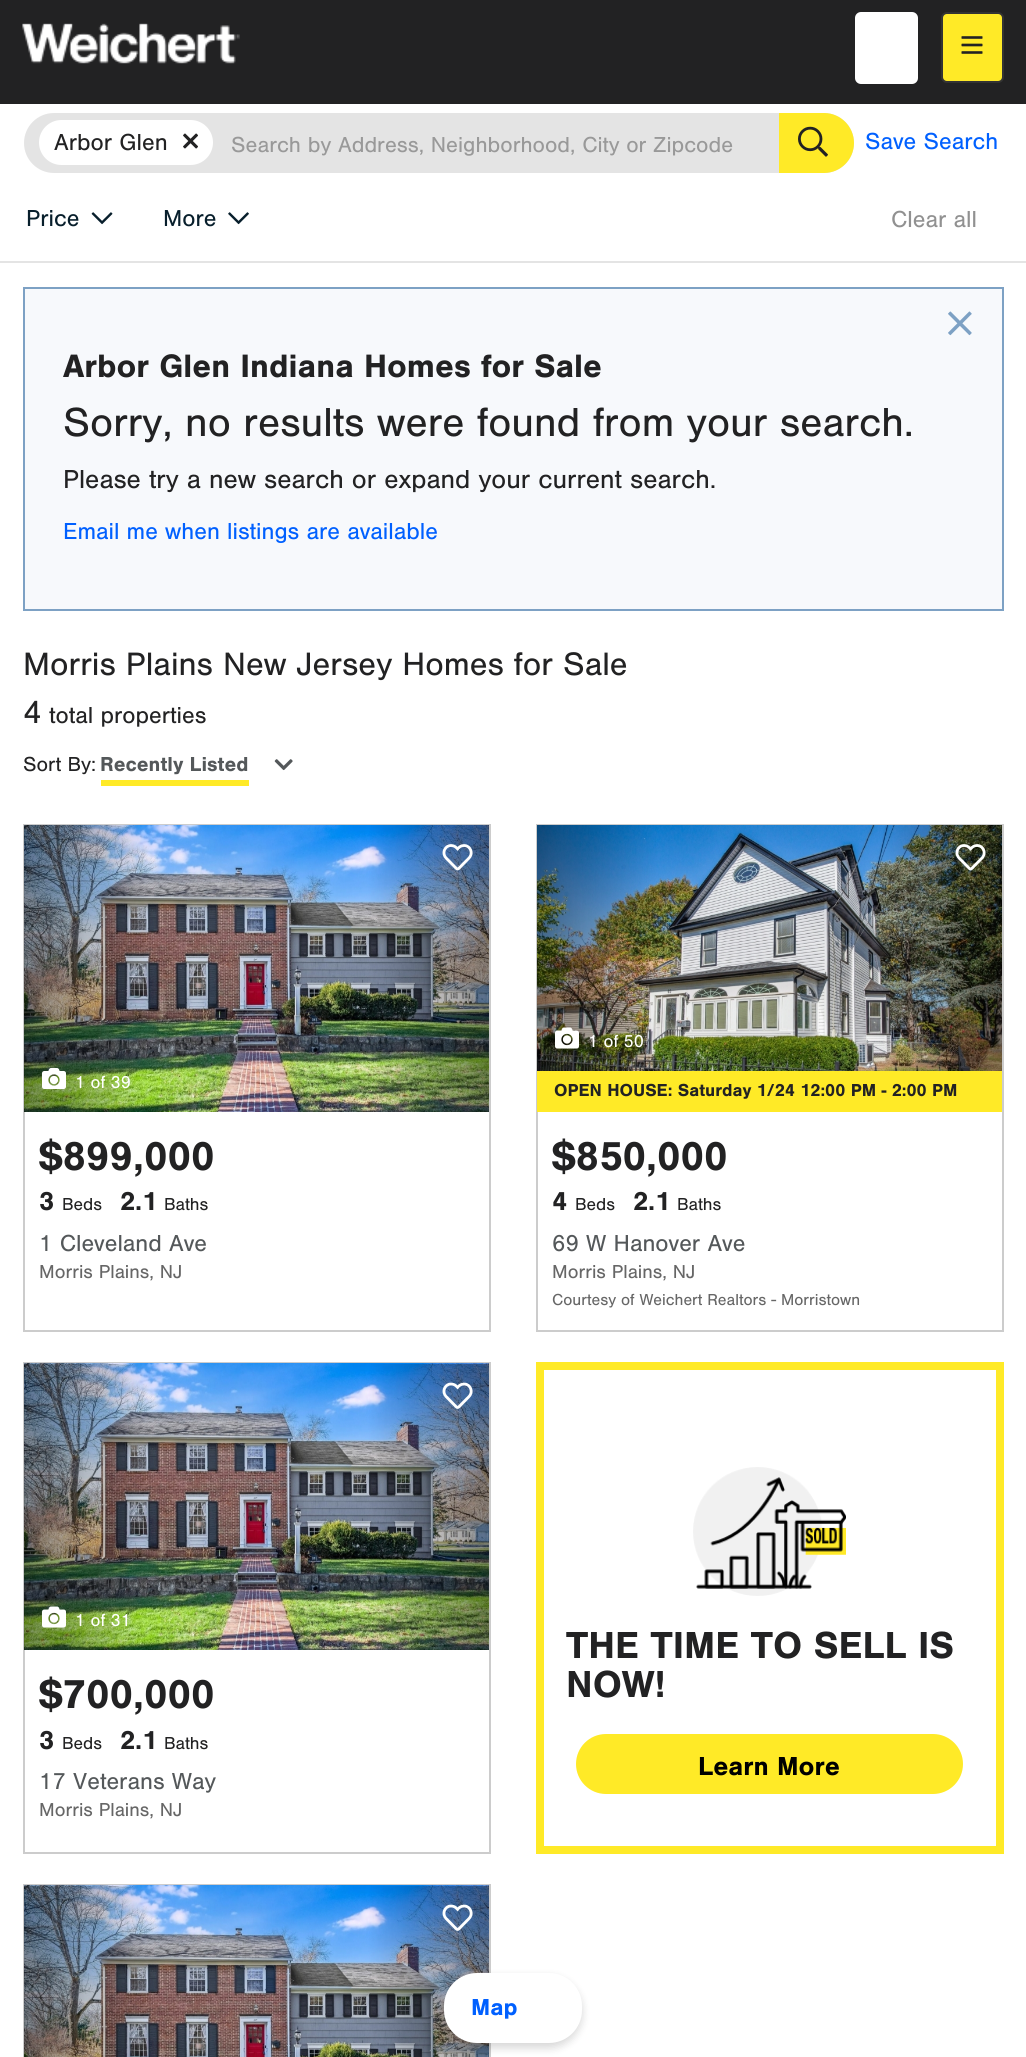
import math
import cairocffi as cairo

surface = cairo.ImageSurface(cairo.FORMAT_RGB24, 1026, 2057)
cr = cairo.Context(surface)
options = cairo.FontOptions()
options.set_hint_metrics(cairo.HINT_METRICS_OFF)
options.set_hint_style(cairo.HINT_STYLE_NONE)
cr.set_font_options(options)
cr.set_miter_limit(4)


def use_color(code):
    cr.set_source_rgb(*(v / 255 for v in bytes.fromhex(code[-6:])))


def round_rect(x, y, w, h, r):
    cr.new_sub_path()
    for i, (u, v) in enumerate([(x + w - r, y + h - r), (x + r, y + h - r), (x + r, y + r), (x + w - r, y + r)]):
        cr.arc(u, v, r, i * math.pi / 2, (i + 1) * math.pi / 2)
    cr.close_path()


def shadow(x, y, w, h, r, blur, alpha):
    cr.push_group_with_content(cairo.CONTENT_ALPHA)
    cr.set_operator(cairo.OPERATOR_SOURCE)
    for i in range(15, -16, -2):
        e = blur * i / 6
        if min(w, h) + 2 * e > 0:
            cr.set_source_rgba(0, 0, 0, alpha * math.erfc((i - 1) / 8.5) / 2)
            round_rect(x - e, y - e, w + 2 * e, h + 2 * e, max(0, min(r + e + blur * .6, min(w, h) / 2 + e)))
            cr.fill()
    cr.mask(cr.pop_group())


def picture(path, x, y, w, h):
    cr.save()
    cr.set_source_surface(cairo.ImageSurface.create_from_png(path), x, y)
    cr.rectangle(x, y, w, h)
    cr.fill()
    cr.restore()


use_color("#ffffff")
cr.paint()
use_color("#222223")
cr.rectangle(0, 0, 1026, 104)
cr.fill()
picture("img1.png", 22, 23, 218, 41)
use_color("#ffffff")
round_rect(855, 12, 63, 72, 6)
cr.fill()
use_color("#ffea27")
round_rect(942, 13, 61, 69, 5)
cr.fill_preserve()
use_color("#333333")
cr.stroke()
picture("img2.png", 961, 36, 22, 18)
use_color("#e4e4e4")
cr.rectangle(0, 261, 1026, 2)
cr.fill()
round_rect(24, 113, 830, 60, 30)
cr.fill()
use_color("#ffffff")
round_rect(39, 120, 174, 45, 22.5)
cr.fill()
cr.select_font_face("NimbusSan")
cr.set_font_size(24)
use_color("#222223")
cr.move_to(54, 150)
cr.show_text("Arbor Glen")
picture("img3.png", 183, 133, 15, 16)
cr.set_font_size(22.5)
use_color("#999999")
cr.move_to(231, 152)
cr.show_text("Search by Address, Neighborhood, City or Zipcode")
use_color("#ffea27")
cr.new_path()
cr.move_to(779, 113)
cr.line_to(824, 113)
cr.curve_to(840.5, 113, 854, 126.5, 854, 143)
cr.curve_to(854, 159.5, 840.5, 173, 824, 173)
cr.line_to(779, 173)
cr.close_path()
cr.fill()
picture("img4.png", 798, 126, 30, 31)
cr.set_font_size(24)
use_color("#0060ff")
cr.move_to(865, 149)
cr.show_text("Save Search")
use_color("#081f2c")
cr.move_to(26, 226)
cr.show_text("Price")
picture("img5.png", 91, 212, 22, 13)
cr.move_to(163, 226)
cr.show_text("More")
picture("img6.png", 228, 212, 21, 13)
use_color("#919191")
cr.move_to(891, 227)
cr.show_text("Clear all")
use_color("#f7f9fc")
cr.rectangle(24, 288, 979, 322)
cr.fill_preserve()
use_color("#7da1c4")
cr.stroke()
picture("img7.png", 948, 311, 24, 25)
cr.select_font_face("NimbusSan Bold", cairo.FONT_SLANT_NORMAL, cairo.FONT_WEIGHT_BOLD)
cr.set_font_size(33.6)
use_color("#222223")
cr.move_to(63, 377)
cr.show_text("Arbor Glen Indiana Homes for Sale")
cr.select_font_face("NimbusSan")
cr.set_font_size(42)
cr.move_to(63, 436)
cr.show_text("Sorry, no results were found from your search.")
cr.set_font_size(27)
cr.move_to(63, 488)
cr.show_text("Please try a new search or expand your current search.")
cr.set_font_size(24)
use_color("#0060ff")
cr.move_to(63, 539)
cr.show_text("Email me when listings are available")
cr.set_font_size(33.6)
use_color("#222223")
cr.move_to(23, 675)
cr.show_text("Morris Plains New Jersey Homes for Sale")
cr.move_to(23, 723)
cr.show_text("4")
cr.set_font_size(24)
cr.move_to(49, 723)
cr.show_text("total properties")
cr.set_font_size(21)
cr.move_to(23, 771)
cr.show_text("Sort By:")
cr.select_font_face("NimbusSan Bold", cairo.FONT_SLANT_NORMAL, cairo.FONT_WEIGHT_BOLD)
use_color("#54585a")
cr.move_to(100, 771)
cr.show_text("Recently Listed")
picture("img8.png", 274, 759, 19, 12)
use_color("#ffea27")
cr.rectangle(101, 780, 148, 6)
cr.fill()
cr.rectangle(24, 1885, 466, 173)
use_color("#cccccc")
cr.stroke()
picture("img19.png", 24, 1885, 465, 172)
use_color("#000000")
shadow(444, 1977, 138, 71, 33, 4.5, 0.16)
use_color("#ffffff")
round_rect(444, 1973, 138, 70, 33)
cr.fill()
cr.set_font_size(24)
use_color("#0060ff")
cr.move_to(471, 2015)
cr.show_text("Map")
cr.rectangle(24, 825, 466, 506)
use_color("#cccccc")
cr.stroke()
picture("img9.png", 24, 825, 465, 287)
picture("img10.png", 442, 844, 31, 27)
picture("img11.png", 42, 1068, 24, 21)
cr.select_font_face("NimbusSan")
cr.set_font_size(18)
use_color("#ffffff")
cr.move_to(75, 1088)
cr.show_text("1 of 39")
cr.select_font_face("NimbusSan Bold", cairo.FONT_SLANT_NORMAL, cairo.FONT_WEIGHT_BOLD)
cr.set_font_size(42)
use_color("#222223")
cr.move_to(39, 1170)
cr.show_text("$899,000")
cr.set_font_size(27)
cr.move_to(39, 1210)
cr.show_text("3")
cr.select_font_face("NimbusSan")
cr.set_font_size(18)
cr.move_to(62, 1210)
cr.show_text("Beds")
cr.select_font_face("NimbusSan Bold", cairo.FONT_SLANT_NORMAL, cairo.FONT_WEIGHT_BOLD)
cr.set_font_size(27)
cr.move_to(120, 1210)
cr.show_text("2.1")
cr.select_font_face("NimbusSan")
cr.set_font_size(18)
cr.move_to(164, 1210)
cr.show_text("Baths")
cr.set_font_size(24)
use_color("#54585a")
cr.move_to(39, 1251)
cr.show_text("1 Cleveland Ave")
cr.set_font_size(19.5)
use_color("#666666")
cr.move_to(39, 1278)
cr.show_text("Morris Plains, NJ")
cr.rectangle(537, 825, 466, 506)
use_color("#cccccc")
cr.stroke()
picture("img12.png", 537, 825, 465, 246)
picture("img13.png", 955, 844, 31, 27)
picture("img14.png", 555, 1027, 24, 22)
cr.set_font_size(18)
use_color("#ffffff")
cr.move_to(588, 1047)
cr.show_text("1 of 50")
use_color("#ffea27")
cr.rectangle(537, 1071, 465, 41)
cr.fill()
cr.select_font_face("NimbusSan Bold", cairo.FONT_SLANT_NORMAL, cairo.FONT_WEIGHT_BOLD)
use_color("#222223")
cr.move_to(554, 1096)
cr.show_text("OPEN HOUSE: Saturday 1/24 12:00 PM - 2:00 PM")
cr.set_font_size(42)
cr.move_to(552, 1170)
cr.show_text("$850,000")
cr.set_font_size(27)
cr.move_to(552, 1210)
cr.show_text("4")
cr.select_font_face("NimbusSan")
cr.set_font_size(18)
cr.move_to(575, 1210)
cr.show_text("Beds")
cr.select_font_face("NimbusSan Bold", cairo.FONT_SLANT_NORMAL, cairo.FONT_WEIGHT_BOLD)
cr.set_font_size(27)
cr.move_to(633, 1210)
cr.show_text("2.1")
cr.select_font_face("NimbusSan")
cr.set_font_size(18)
cr.move_to(677, 1210)
cr.show_text("Baths")
cr.set_font_size(24)
use_color("#54585a")
cr.move_to(552, 1251)
cr.show_text("69 W Hanover Ave")
cr.set_font_size(19.5)
use_color("#666666")
cr.move_to(552, 1278)
cr.show_text("Morris Plains, NJ")
cr.set_font_size(16.5)
cr.move_to(552, 1305)
cr.show_text("Courtesy of Weichert Realtors - Morristown")
cr.rectangle(24, 1363, 466, 490)
use_color("#cccccc")
cr.stroke()
picture("img15.png", 24, 1363, 465, 287)
picture("img16.png", 442, 1382, 31, 27)
picture("img17.png", 42, 1606, 24, 22)
cr.set_font_size(18)
use_color("#ffffff")
cr.move_to(75, 1626)
cr.show_text("1 of 31")
cr.select_font_face("NimbusSan Bold", cairo.FONT_SLANT_NORMAL, cairo.FONT_WEIGHT_BOLD)
cr.set_font_size(42)
use_color("#222223")
cr.move_to(39, 1708)
cr.show_text("$700,000")
cr.set_font_size(27)
cr.move_to(39, 1749)
cr.show_text("3")
cr.select_font_face("NimbusSan")
cr.set_font_size(18)
cr.move_to(62, 1749)
cr.show_text("Beds")
cr.select_font_face("NimbusSan Bold", cairo.FONT_SLANT_NORMAL, cairo.FONT_WEIGHT_BOLD)
cr.set_font_size(27)
cr.move_to(120, 1749)
cr.show_text("2.1")
cr.select_font_face("NimbusSan")
cr.set_font_size(18)
cr.move_to(164, 1749)
cr.show_text("Baths")
cr.set_font_size(24)
use_color("#54585a")
cr.move_to(39, 1789)
cr.show_text("17 Veterans Way")
cr.set_font_size(19.5)
use_color("#666666")
cr.move_to(39, 1816)
cr.show_text("Morris Plains, NJ")
cr.rectangle(540, 1366, 460, 484)
use_color("#ffea27")
cr.set_line_width(8)
cr.stroke()
picture("img18.png", 693, 1467, 153, 129)
cr.select_font_face("NimbusSan Bold", cairo.FONT_SLANT_NORMAL, cairo.FONT_WEIGHT_BOLD)
cr.set_font_size(39)
use_color("#222223")
cr.move_to(566, 1658)
cr.show_text("THE TIME TO SELL IS")
cr.move_to(566, 1697)
cr.show_text("NOW!")
use_color("#ffea27")
round_rect(576, 1734, 387, 60, 30)
cr.fill()
cr.set_font_size(27)
use_color("#000000")
cr.move_to(698, 1775)
cr.show_text("Learn More")
picture("img16.png", 442, 1904, 31, 27)
surface.write_to_png("result.png")
